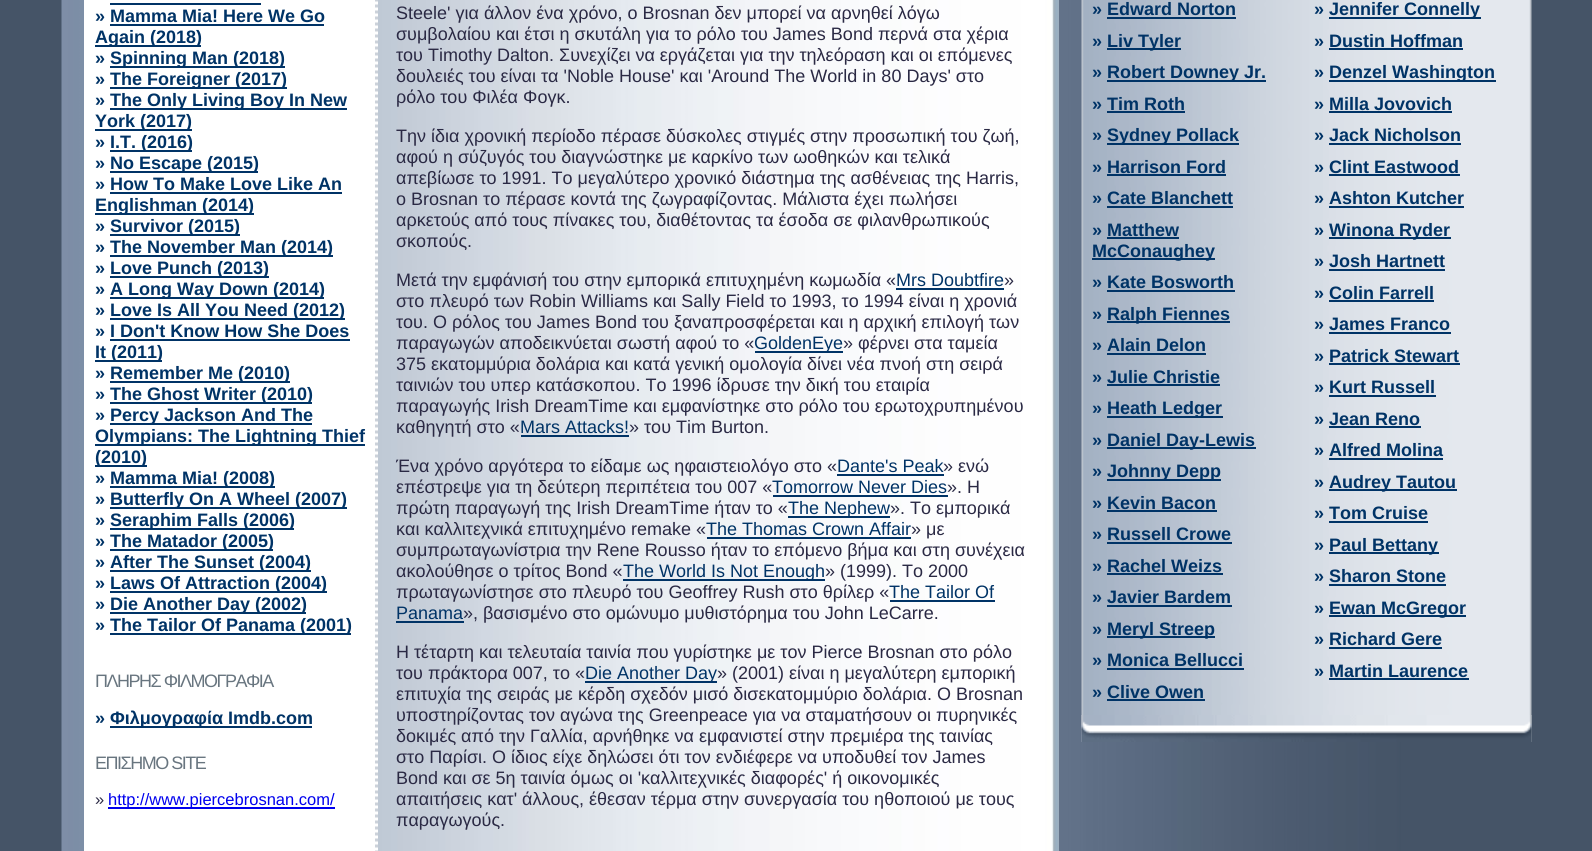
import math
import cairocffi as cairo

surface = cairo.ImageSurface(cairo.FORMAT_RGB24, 1592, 851)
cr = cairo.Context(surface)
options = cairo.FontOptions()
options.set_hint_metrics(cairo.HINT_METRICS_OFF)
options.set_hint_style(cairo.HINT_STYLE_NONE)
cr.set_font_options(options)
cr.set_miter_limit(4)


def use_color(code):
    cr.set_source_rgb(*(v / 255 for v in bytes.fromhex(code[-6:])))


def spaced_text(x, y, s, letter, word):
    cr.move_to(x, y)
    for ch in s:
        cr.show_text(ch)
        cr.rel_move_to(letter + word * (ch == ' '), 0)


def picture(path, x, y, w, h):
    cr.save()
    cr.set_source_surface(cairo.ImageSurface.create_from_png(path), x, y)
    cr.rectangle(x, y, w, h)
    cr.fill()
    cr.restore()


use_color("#ffffff")
cr.paint()
picture("img1.png", 0, 0, 1592, 851)
picture("img2.png", 61, 0, 998, 851)
use_color("#ffffff")
cr.rectangle(84, 0, 294, 851)
cr.fill()
cr.new_path()
cr.move_to(376.5, -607.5)
cr.line_to(376.5, 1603.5)
use_color("#ccd2da")
cr.set_line_width(3)
cr.set_dash([3, 3])
cr.stroke()
use_color("#003366")
cr.rectangle(110, 3, 151, 2)
cr.fill()
cr.select_font_face("Liberation Sans", cairo.FONT_SLANT_NORMAL, cairo.FONT_WEIGHT_BOLD)
cr.set_font_size(18)
cr.move_to(95, 22)
cr.show_text("» Mamma Mia! Here We Go")
cr.rectangle(110, 24, 214, 2)
cr.fill()
cr.rectangle(95, 45, 106, 2)
cr.fill()
cr.move_to(95, 43)
cr.show_text("Again (2018)")
cr.move_to(95, 64)
cr.show_text("»")
cr.rectangle(110, 66, 175, 2)
cr.fill()
cr.move_to(110, 64)
cr.show_text("Spinning Man (2018)")
cr.move_to(95, 85)
cr.show_text("»")
cr.rectangle(110, 87, 177, 2)
cr.fill()
cr.move_to(110, 85)
cr.show_text("The Foreigner (2017)")
cr.move_to(95, 106)
cr.show_text("»")
cr.rectangle(110, 108, 237, 2)
cr.fill()
cr.move_to(110, 106)
cr.show_text("The Only Living Boy In New")
cr.rectangle(95, 129, 97, 2)
cr.fill()
cr.move_to(95, 127)
cr.show_text("York (2017)")
cr.move_to(95, 148)
cr.show_text("»")
cr.rectangle(110, 150, 82, 2)
cr.fill()
cr.move_to(110, 148)
cr.show_text("I.T. (2016)")
cr.move_to(95, 169)
cr.show_text("»")
cr.rectangle(110, 171, 148, 2)
cr.fill()
cr.move_to(110, 169)
cr.show_text("No Escape (2015)")
cr.move_to(95, 190)
cr.show_text("» How To Make Love Like An")
cr.rectangle(110, 192, 232, 2)
cr.fill()
cr.rectangle(95, 213, 159, 2)
cr.fill()
cr.move_to(95, 211)
cr.show_text("Englishman (2014)")
cr.move_to(95, 232)
cr.show_text("»")
cr.rectangle(110, 234, 130, 2)
cr.fill()
cr.move_to(110, 232)
cr.show_text("Survivor (2015)")
cr.move_to(95, 253)
cr.show_text("»")
cr.rectangle(110, 255, 223, 2)
cr.fill()
cr.move_to(110, 253)
cr.show_text("The November Man (2014)")
cr.move_to(95, 274)
cr.show_text("»")
cr.rectangle(110, 276, 159, 2)
cr.fill()
cr.move_to(110, 274)
cr.show_text("Love Punch (2013)")
cr.move_to(95, 295)
cr.show_text("»")
cr.rectangle(110, 297, 214, 2)
cr.fill()
cr.move_to(110, 295)
cr.show_text("A Long Way Down (2014)")
cr.move_to(95, 316)
cr.show_text("»")
cr.rectangle(110, 318, 235, 2)
cr.fill()
cr.move_to(110, 316)
cr.show_text("Love Is All You Need (2012)")
cr.move_to(95, 337)
cr.show_text("» I Don't Know How She Does")
cr.rectangle(110, 339, 240, 2)
cr.fill()
cr.rectangle(95, 360, 67, 2)
cr.fill()
cr.move_to(95, 358)
cr.show_text("It (2011)")
cr.move_to(95, 379)
cr.show_text("»")
cr.rectangle(110, 381, 180, 2)
cr.fill()
cr.move_to(110, 379)
cr.show_text("Remember Me (2010)")
cr.move_to(95, 400)
cr.show_text("»")
cr.rectangle(110, 402, 202, 2)
cr.fill()
cr.move_to(110, 400)
cr.show_text("The Ghost Writer (2010)")
cr.move_to(95, 421)
cr.show_text("»")
cr.rectangle(110, 423, 202, 2)
cr.fill()
cr.move_to(110, 421)
cr.show_text("Percy Jackson And The")
cr.rectangle(95, 444, 270, 2)
cr.fill()
cr.move_to(95, 442)
cr.show_text("Olympians: The Lightning Thief")
cr.rectangle(95, 465, 52, 2)
cr.fill()
cr.move_to(95, 463)
cr.show_text("(2010)")
cr.move_to(95, 484)
cr.show_text("»")
cr.rectangle(110, 486, 165, 2)
cr.fill()
cr.move_to(110, 484)
cr.show_text("Mamma Mia! (2008)")
cr.move_to(95, 505)
cr.show_text("»")
cr.rectangle(110, 507, 237, 2)
cr.fill()
cr.move_to(110, 505)
cr.show_text("Butterfly On A Wheel (2007)")
cr.move_to(95, 526)
cr.show_text("»")
cr.rectangle(110, 528, 184, 2)
cr.fill()
cr.move_to(110, 526)
cr.show_text("Seraphim Falls (2006)")
cr.move_to(95, 547)
cr.show_text("»")
cr.rectangle(110, 549, 163, 2)
cr.fill()
cr.move_to(110, 547)
cr.show_text("The Matador (2005)")
cr.move_to(95, 568)
cr.show_text("»")
cr.rectangle(110, 570, 201, 2)
cr.fill()
cr.move_to(110, 568)
cr.show_text("After The Sunset (2004)")
cr.move_to(95, 589)
cr.show_text("»")
cr.rectangle(110, 591, 217, 2)
cr.fill()
cr.move_to(110, 589)
cr.show_text("Laws Of Attraction (2004)")
cr.move_to(95, 610)
cr.show_text("»")
cr.rectangle(110, 612, 196, 2)
cr.fill()
cr.move_to(110, 610)
cr.show_text("Die Another Day (2002)")
cr.move_to(95, 631)
cr.show_text("»")
cr.rectangle(110, 633, 241, 2)
cr.fill()
cr.move_to(110, 631)
cr.show_text("The Tailor Of Panama (2001)")
cr.select_font_face("Liberation Sans")
use_color("#68757f")
spaced_text(95, 687, "ΠΛΗΡΗΣ ΦΙΛΜΟΓΡΑΦΙΑ", -1.5, 0)
cr.select_font_face("Liberation Sans", cairo.FONT_SLANT_NORMAL, cairo.FONT_WEIGHT_BOLD)
use_color("#003366")
cr.move_to(95, 724)
cr.show_text("»")
cr.rectangle(110, 726, 202, 2)
cr.fill()
cr.move_to(110, 724)
cr.show_text("Φιλμογραφία Imdb.com")
cr.select_font_face("Liberation Sans")
use_color("#68757f")
spaced_text(95, 769, "ΕΠΙΣΗΜΟ SITE", -1.5, 0)
cr.set_font_size(16.5)
use_color("#2a2944")
cr.move_to(95, 805)
cr.show_text("»")
use_color("#0000ee")
cr.rectangle(108, 807, 227, 2)
cr.fill()
cr.move_to(108, 805)
cr.show_text("http://www.piercebrosnan.com/")
cr.set_font_size(18)
use_color("#2a2944")
cr.move_to(396, 19)
cr.show_text("Steele' για άλλον ένα χρόνο, ο Brosnan δεν μπορεί να αρνηθεί λόγω")
cr.move_to(396, 40)
cr.show_text("συμβολαίου και έτσι η σκυτάλη για το ρόλο του James Bond περνά στα χέρια")
cr.move_to(396, 61)
cr.show_text("του Timothy Dalton. Συνεχίζει να εργάζεται για την τηλεόραση και οι επόμενες")
cr.move_to(396, 82)
cr.show_text("δουλειές του είναι τα 'Noble House' και 'Around The World in 80 Days' στο")
cr.move_to(396, 103)
cr.show_text("ρόλο του Φιλέα Φογκ.")
cr.move_to(396, 142)
cr.show_text("Την ίδια χρονική περίοδο πέρασε δύσκολες στιγμές στην προσωπική του ζωή,")
cr.move_to(396, 163)
cr.show_text("αφού η σύζυγός του διαγνώστηκε με καρκίνο των ωοθηκών και τελικά")
cr.move_to(396, 184)
cr.show_text("απεβίωσε το 1991. Το μεγαλύτερο χρονικό διάστημα της ασθένειας της Harris,")
cr.move_to(396, 205)
cr.show_text("ο Brosnan το πέρασε κοντά της ζωγραφίζοντας. Μάλιστα έχει πωλήσει")
cr.move_to(396, 226)
cr.show_text("αρκετούς από τους πίνακες του, διαθέτοντας τα έσοδα σε φιλανθρωπικούς")
cr.move_to(396, 247)
cr.show_text("σκοπούς.")
cr.move_to(396, 286)
cr.show_text("Μετά την εμφάνισή του στην εμπορικά επιτυχημένη κωμωδία «")
use_color("#003366")
cr.move_to(896, 286)
cr.show_text("Mrs Doubtfire")
cr.rectangle(896, 288, 108, 2)
cr.fill()
use_color("#2a2944")
cr.move_to(1004, 286)
cr.show_text("»")
cr.move_to(396, 307)
cr.show_text("στο πλευρό των Robin Williams και Sally Field το 1993, το 1994 είναι η χρονιά")
cr.move_to(396, 328)
cr.show_text("του. Ο ρόλος του James Bond του ξαναπροσφέρεται και η αρχική επιλογή των")
cr.move_to(396, 349)
cr.show_text("παραγωγών αποδεικνύεται σωστή αφού το «")
use_color("#003366")
cr.rectangle(755, 351, 88, 2)
cr.fill()
cr.move_to(754, 349)
cr.show_text("GoldenEye")
use_color("#2a2944")
cr.move_to(843, 349)
cr.show_text("» φέρνει στα ταμεία")
cr.move_to(396, 370)
cr.show_text("375 εκατομμύρια δολάρια και κατά γενική ομολογία δίνει νέα πνοή στη σειρά")
cr.move_to(396, 391)
cr.show_text("ταινιών του υπερ κατάσκοπου. Το 1996 ίδρυσε την δική του εταιρία")
cr.move_to(396, 412)
cr.show_text("παραγωγής Irish DreamTime και εμφανίστηκε στο ρόλο του ερωτοχρυπημένου")
cr.move_to(396, 433)
cr.show_text("καθηγητή στο «")
use_color("#003366")
cr.move_to(520, 433)
cr.show_text("Mars Attacks!")
cr.rectangle(521, 435, 108, 2)
cr.fill()
use_color("#2a2944")
cr.move_to(629, 433)
cr.show_text("» του Tim Burton.")
cr.move_to(396, 472)
cr.show_text("Ένα χρόνο αργότερα το είδαμε ως ηφαιστειολόγο στο «")
use_color("#003366")
cr.move_to(837, 472)
cr.show_text("Dante's Peak")
cr.rectangle(837, 474, 107, 2)
cr.fill()
use_color("#2a2944")
cr.move_to(943, 472)
cr.show_text("» ενώ")
cr.move_to(396, 493)
cr.show_text("επέστρεψε για τη δεύτερη περιπέτεια του 007 «")
use_color("#003366")
cr.move_to(772, 493)
cr.show_text("Tomorrow Never Dies")
cr.rectangle(773, 495, 175, 2)
cr.fill()
use_color("#2a2944")
cr.move_to(947, 493)
cr.show_text("». Η")
cr.move_to(396, 514)
cr.show_text("πρώτη παραγωγή της Irish DreamTime ήταν το «")
use_color("#003366")
cr.rectangle(788, 516, 102, 2)
cr.fill()
cr.move_to(788, 514)
cr.show_text("The Nephew")
use_color("#2a2944")
cr.move_to(890, 514)
cr.show_text("». Το εμπορικά")
cr.move_to(396, 535)
cr.show_text("και καλλιτεχνικά επιτυχημένο remake «")
use_color("#003366")
cr.move_to(706, 535)
cr.show_text("The Thomas Crown Affair")
cr.rectangle(707, 537, 204, 2)
cr.fill()
use_color("#2a2944")
cr.move_to(911, 535)
cr.show_text("» με")
cr.move_to(396, 556)
cr.show_text("συμπρωταγωνίστρια την Rene Rousso ήταν το επόμενο βήμα και στη συνέχεια")
cr.move_to(396, 577)
cr.show_text("ακολούθησε ο τρίτος Bond «")
use_color("#003366")
cr.rectangle(623, 579, 202, 2)
cr.fill()
cr.move_to(623, 577)
cr.show_text("The World Is Not Enough")
use_color("#2a2944")
cr.move_to(825, 577)
cr.show_text("» (1999). Το 2000")
cr.move_to(396, 598)
cr.show_text("πρωταγωνίστησε στο πλευρό του Geoffrey Rush στο θρίλερ «")
use_color("#003366")
cr.move_to(889, 598)
cr.show_text("The Tailor Of")
cr.rectangle(890, 600, 105, 2)
cr.fill()
cr.move_to(396, 619)
cr.show_text("Panama")
cr.rectangle(396, 621, 68, 2)
cr.fill()
use_color("#2a2944")
cr.move_to(463, 619)
cr.show_text("», βασισμένο στο ομώνυμο μυθιστόρημα του John LeCarre.")
cr.move_to(396, 658)
cr.show_text("Η τέταρτη και τελευταία ταινία που γυρίστηκε με τον Pierce Brosnan στο ρόλο")
cr.move_to(396, 679)
cr.show_text("του πράκτορα 007, το «")
use_color("#003366")
cr.rectangle(585, 681, 132, 2)
cr.fill()
cr.move_to(585, 679)
cr.show_text("Die Another Day")
use_color("#2a2944")
cr.move_to(717, 679)
cr.show_text("» (2001) είναι η μεγαλύτερη εμπορική")
cr.move_to(396, 700)
cr.show_text("επιτυχία της σειράς με κέρδη σχεδόν μισό δισεκατομμύριο δολάρια. Ο Brosnan")
cr.move_to(396, 721)
cr.show_text("υποστηρίζοντας τον αγώνα της Greenpeace για να σταματήσουν οι πυρηνικές")
cr.move_to(396, 742)
cr.show_text("δοκιμές από την Γαλλία, αρνήθηκε να εμφανιστεί στην πρεμιέρα της ταινίας")
cr.move_to(396, 763)
cr.show_text("στο Παρίσι. O ίδιος είχε δηλώσει ότι τον ενδιέφερε να υποδυθεί τον James")
cr.move_to(396, 784)
cr.show_text("Bond και σε 5η ταινία όμως οι 'καλλιτεχνικές διαφορές' ή οικονομικές")
cr.move_to(396, 805)
cr.show_text("απαιτήσεις κατ' άλλους, έθεσαν τέρμα στην συνεργασία του ηθοποιού με τους")
cr.move_to(396, 826)
cr.show_text("παραγωγούς.")
picture("img3.png", 1081, 0, 451, 742)
cr.select_font_face("Liberation Sans", cairo.FONT_SLANT_NORMAL, cairo.FONT_WEIGHT_BOLD)
use_color("#003366")
cr.move_to(1092, 15)
cr.show_text("» Edward Norton")
cr.rectangle(1107, 17, 129, 2)
cr.fill()
cr.move_to(1092, 47)
cr.show_text("»")
cr.rectangle(1107, 48, 74, 2)
cr.fill()
cr.move_to(1107, 47)
cr.show_text("Liv Tyler")
cr.move_to(1092, 78)
cr.show_text("»")
cr.rectangle(1107, 80, 159, 2)
cr.fill()
cr.move_to(1107, 78)
cr.show_text("Robert Downey Jr.")
cr.move_to(1092, 110)
cr.show_text("» Tim Roth")
cr.rectangle(1107, 111, 78, 2)
cr.fill()
cr.move_to(1092, 141)
cr.show_text("»")
cr.rectangle(1107, 143, 132, 2)
cr.fill()
cr.move_to(1107, 141)
cr.show_text("Sydney Pollack")
cr.move_to(1092, 173)
cr.show_text("» Harrison Ford")
cr.rectangle(1107, 174, 119, 2)
cr.fill()
cr.move_to(1092, 204)
cr.show_text("» Cate Blanchett")
cr.rectangle(1107, 206, 126, 2)
cr.fill()
cr.move_to(1092, 236)
cr.show_text("» Matthew")
cr.rectangle(1092, 258, 123, 2)
cr.fill()
cr.move_to(1092, 257)
cr.show_text("McConaughey")
cr.rectangle(1107, 237, 72, 2)
cr.fill()
cr.move_to(1092, 288)
cr.show_text("» Kate Bosworth")
cr.rectangle(1107, 290, 128, 2)
cr.fill()
cr.move_to(1092, 320)
cr.show_text("»")
cr.rectangle(1107, 321, 123, 2)
cr.fill()
cr.move_to(1107, 320)
cr.show_text("Ralph Fiennes")
cr.move_to(1092, 351)
cr.show_text("» Alain Delon")
cr.rectangle(1107, 353, 99, 2)
cr.fill()
cr.move_to(1092, 383)
cr.show_text("» Julie Christie")
cr.rectangle(1107, 384, 113, 2)
cr.fill()
cr.move_to(1092, 414)
cr.show_text("»")
cr.rectangle(1107, 416, 116, 2)
cr.fill()
cr.move_to(1107, 414)
cr.show_text("Heath Ledger")
cr.move_to(1092, 446)
cr.show_text("»")
cr.rectangle(1107, 447, 149, 2)
cr.fill()
cr.move_to(1107, 446)
cr.show_text("Daniel Day-Lewis")
cr.move_to(1092, 477)
cr.show_text("»")
cr.rectangle(1107, 479, 114, 2)
cr.fill()
cr.move_to(1107, 477)
cr.show_text("Johnny Depp")
cr.move_to(1092, 509)
cr.show_text("» Kevin Bacon")
cr.rectangle(1107, 510, 110, 2)
cr.fill()
cr.move_to(1092, 540)
cr.show_text("» Russell Crowe")
cr.rectangle(1107, 542, 125, 2)
cr.fill()
cr.move_to(1092, 572)
cr.show_text("» Rachel Weizs")
cr.rectangle(1107, 573, 116, 2)
cr.fill()
cr.move_to(1092, 603)
cr.show_text("» Javier Bardem")
cr.rectangle(1107, 605, 125, 2)
cr.fill()
cr.move_to(1092, 635)
cr.show_text("»")
cr.rectangle(1107, 636, 108, 2)
cr.fill()
cr.move_to(1107, 635)
cr.show_text("Meryl Streep")
cr.move_to(1092, 666)
cr.show_text("» Monica Bellucci")
cr.rectangle(1107, 668, 137, 2)
cr.fill()
cr.move_to(1092, 698)
cr.show_text("» Clive Owen")
cr.rectangle(1107, 699, 98, 2)
cr.fill()
cr.move_to(1314, 15)
cr.show_text("»")
cr.rectangle(1329, 17, 152, 2)
cr.fill()
cr.move_to(1329, 15)
cr.show_text("Jennifer Connelly")
cr.move_to(1314, 47)
cr.show_text("» Dustin Hoffman")
cr.rectangle(1329, 48, 134, 2)
cr.fill()
cr.move_to(1314, 78)
cr.show_text("»")
cr.rectangle(1329, 80, 167, 2)
cr.fill()
cr.move_to(1329, 78)
cr.show_text("Denzel Washington")
cr.move_to(1314, 110)
cr.show_text("» Milla Jovovich")
cr.rectangle(1329, 111, 123, 2)
cr.fill()
cr.move_to(1314, 141)
cr.show_text("» Jack Nicholson")
cr.rectangle(1329, 143, 132, 2)
cr.fill()
cr.move_to(1314, 173)
cr.show_text("» Clint Eastwood")
cr.rectangle(1329, 174, 131, 2)
cr.fill()
cr.move_to(1314, 204)
cr.show_text("» Ashton Kutcher")
cr.rectangle(1329, 206, 135, 2)
cr.fill()
cr.move_to(1314, 236)
cr.show_text("»")
cr.rectangle(1329, 237, 122, 2)
cr.fill()
cr.move_to(1329, 236)
cr.show_text("Winona Ryder")
cr.move_to(1314, 267)
cr.show_text("» Josh Hartnett")
cr.rectangle(1329, 269, 116, 2)
cr.fill()
cr.move_to(1314, 299)
cr.show_text("» Colin Farrell")
cr.rectangle(1329, 300, 105, 2)
cr.fill()
cr.move_to(1314, 330)
cr.show_text("» James Franco")
cr.rectangle(1329, 332, 122, 2)
cr.fill()
cr.move_to(1314, 362)
cr.show_text("» Patrick Stewart")
cr.rectangle(1329, 363, 131, 2)
cr.fill()
cr.move_to(1314, 393)
cr.show_text("» Kurt Russell")
cr.rectangle(1329, 395, 107, 2)
cr.fill()
cr.move_to(1314, 425)
cr.show_text("» Jean Reno")
cr.rectangle(1329, 426, 92, 2)
cr.fill()
cr.move_to(1314, 456)
cr.show_text("» Alfred Molina")
cr.rectangle(1329, 458, 114, 2)
cr.fill()
cr.move_to(1314, 488)
cr.show_text("»")
cr.rectangle(1329, 489, 128, 2)
cr.fill()
cr.move_to(1329, 488)
cr.show_text("Audrey Tautou")
cr.move_to(1314, 519)
cr.show_text("» Tom Cruise")
cr.rectangle(1329, 521, 99, 2)
cr.fill()
cr.move_to(1314, 551)
cr.show_text("»")
cr.rectangle(1329, 552, 110, 2)
cr.fill()
cr.move_to(1329, 551)
cr.show_text("Paul Bettany")
cr.move_to(1314, 582)
cr.show_text("» Sharon Stone")
cr.rectangle(1329, 584, 117, 2)
cr.fill()
cr.move_to(1314, 614)
cr.show_text("»")
cr.rectangle(1329, 615, 137, 2)
cr.fill()
cr.move_to(1329, 614)
cr.show_text("Ewan McGregor")
cr.move_to(1314, 645)
cr.show_text("» Richard Gere")
cr.rectangle(1329, 647, 113, 2)
cr.fill()
cr.move_to(1314, 677)
cr.show_text("» Martin Laurence")
cr.rectangle(1329, 678, 140, 2)
cr.fill()
picture("img4.png", 1081, 715, 451, 27)
surface.write_to_png("result.png")
